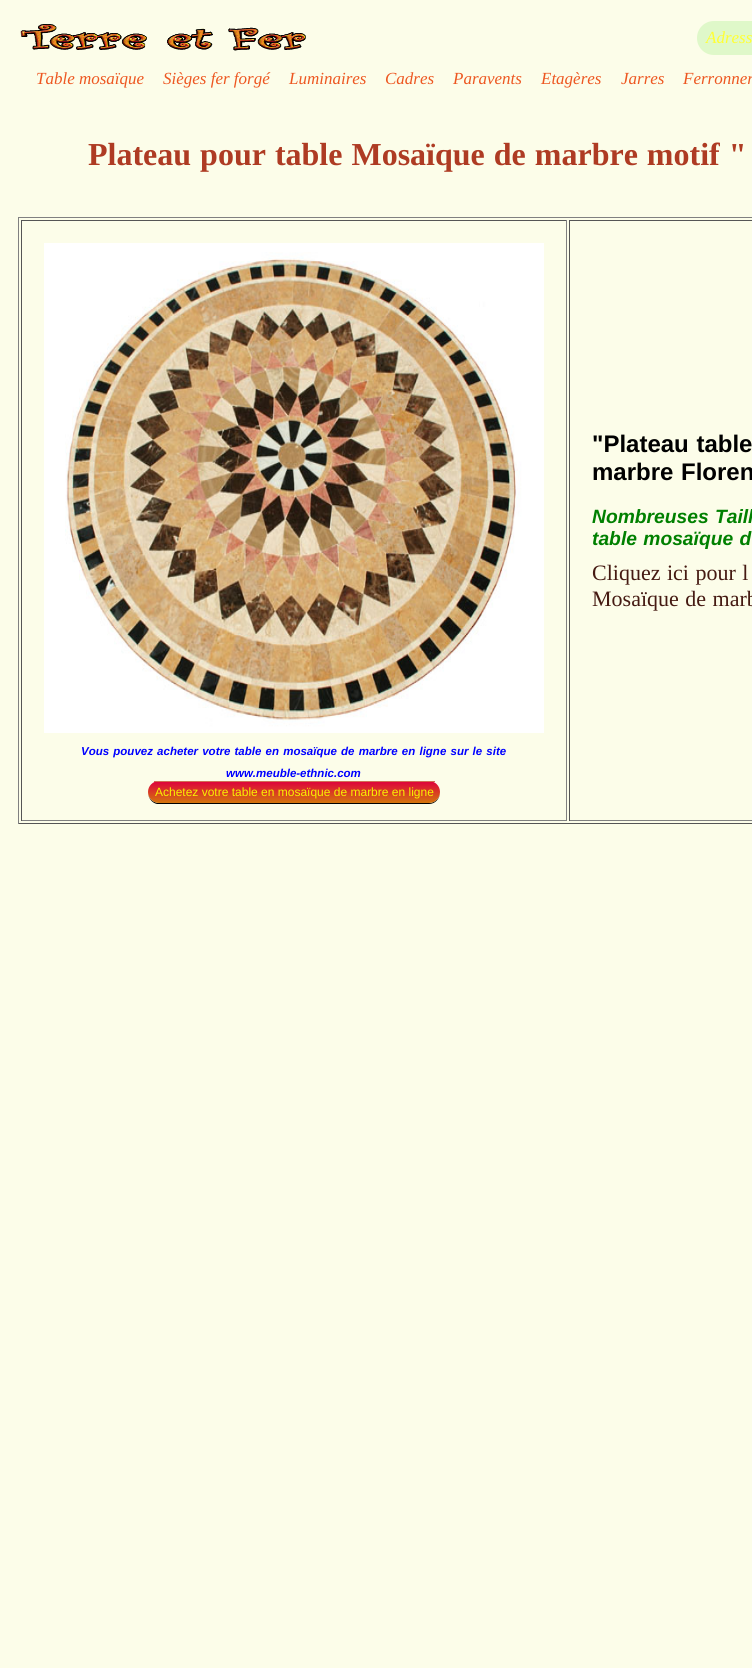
import math
import cairocffi as cairo

surface = cairo.ImageSurface(cairo.FORMAT_RGB24, 752, 1668)
cr = cairo.Context(surface)
options = cairo.FontOptions()
options.set_hint_metrics(cairo.HINT_METRICS_OFF)
options.set_hint_style(cairo.HINT_STYLE_NONE)
cr.set_font_options(options)
cr.set_miter_limit(4)


def use_color(code):
    cr.set_source_rgb(*(v / 255 for v in bytes.fromhex(code[-6:])))


def spaced_text(x, y, s, letter, word):
    cr.move_to(x, y)
    for ch in s:
        cr.show_text(ch)
        cr.rel_move_to(letter + word * (ch == ' '), 0)


def round_rect(x, y, w, h, r):
    cr.new_sub_path()
    for i, (u, v) in enumerate([(x + w - r, y + h - r), (x + r, y + h - r), (x + r, y + r), (x + w - r, y + r)]):
        cr.arc(u, v, r, i * math.pi / 2, (i + 1) * math.pi / 2)
    cr.close_path()


def picture(path, x, y, w, h):
    cr.save()
    cr.set_source_surface(cairo.ImageSurface.create_from_png(path), x, y)
    cr.rectangle(x, y, w, h)
    cr.fill()
    cr.restore()


use_color("#fcfde9")
cr.paint()
picture("img1.png", 20, 24, 286, 27)
use_color("#dff8c9")
cr.new_path()
cr.move_to(714, 21)
cr.line_to(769, 21)
cr.line_to(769, 55)
cr.line_to(714, 55)
cr.curve_to(704.5, 55, 697, 47.5, 697, 38)
cr.curve_to(697, 28.5, 704.5, 21, 714, 21)
cr.close_path()
cr.fill()
cr.select_font_face("Liberation Serif", cairo.FONT_SLANT_ITALIC)
cr.set_font_size(17)
use_color("#ffff33")
cr.move_to(706, 43)
cr.show_text("Adress")
use_color("#ed5721")
cr.move_to(36, 84)
cr.show_text("Table mosaïque")
cr.move_to(163, 84)
cr.show_text("Sièges fer forgé")
cr.move_to(289, 84)
cr.show_text("Luminaires")
cr.move_to(385, 84)
cr.show_text("Cadres")
cr.move_to(453, 84)
cr.show_text("Paravents")
cr.move_to(541, 84)
cr.show_text("Etagères")
cr.move_to(621, 84)
cr.show_text("Jarres")
cr.move_to(683, 84)
cr.show_text("Ferronner")
cr.select_font_face("Liberation Serif", cairo.FONT_SLANT_NORMAL, cairo.FONT_WEIGHT_BOLD)
cr.set_font_size(32)
use_color("#ae3b23")
spaced_text(88, 165, "Plateau pour table Mosaïque de marbre motif \"", 0, 1)
use_color("#808080")
cr.rectangle(18, 217, 734, 1)
cr.fill()
use_color("#555555")
cr.rectangle(18, 823, 734, 1)
cr.fill()
use_color("#808080")
cr.rectangle(18, 217, 1, 607)
cr.fill()
use_color("#555555")
cr.rectangle(569, 220, 183, 1)
cr.fill()
use_color("#808080")
cr.rectangle(569, 820, 183, 1)
cr.fill()
use_color("#555555")
cr.rectangle(569, 220, 1, 601)
cr.fill()
cr.select_font_face("Liberation Sans", cairo.FONT_SLANT_NORMAL, cairo.FONT_WEIGHT_BOLD)
cr.set_font_size(24)
use_color("#000000")
spaced_text(592, 452, "\"Plateau table", 0, 1)
spaced_text(592, 480, "marbre Floren", 0, 1)
cr.select_font_face("Liberation Sans", cairo.FONT_SLANT_ITALIC, cairo.FONT_WEIGHT_BOLD)
cr.set_font_size(19.25)
use_color("#008000")
spaced_text(592, 523, "Nombreuses Taill", 0, 1)
spaced_text(592, 545, "table mosaïque d", 0, 1)
cr.select_font_face("Liberation Serif")
cr.set_font_size(22)
use_color("#451a12")
spaced_text(592, 580, "Cliquez ici pour l", 0, 1)
spaced_text(592, 606, "Mosaïque de marb", 0, 1)
use_color("#555555")
cr.rectangle(21, 220, 546, 1)
cr.fill()
use_color("#808080")
cr.rectangle(566, 220, 1, 601)
cr.fill()
cr.rectangle(21, 820, 546, 1)
cr.fill()
use_color("#555555")
cr.rectangle(21, 220, 1, 601)
cr.fill()
picture("img2.png", 44, 243, 500, 490)
cr.select_font_face("Liberation Sans", cairo.FONT_SLANT_ITALIC, cairo.FONT_WEIGHT_BOLD)
cr.set_font_size(11.5)
use_color("#0000ff")
spaced_text(81, 755, "Vous pouvez acheter votre table en mosaïque de marbre en ligne sur le site", 0, 1)
cr.move_to(226, 777)
cr.show_text("www.meuble-ethnic.com")
use_color("#000000")
cr.new_path()
cr.move_to(148, 792)
cr.curve_to(148, 798, 152, 803, 157, 804)
cr.line_to(429, 804)
cr.curve_to(435, 804, 440, 799, 440, 792)
cr.curve_to(440, 798, 435, 803, 429, 803)
cr.line_to(159, 803)
cr.curve_to(153, 803, 148, 798, 148, 792)
cr.close_path()
cr.fill()
cr.save()
round_rect(148, 781, 292, 22, 11)
cr.clip()
gradient = cairo.LinearGradient(294, 782, 294, 803)
gradient.add_color_stop_rgba(0, 0.871, 0.016, 0.231, 1)
gradient.add_color_stop_rgba(1, 0.831, 0.463, 0.043, 1)
cr.set_source(gradient)
cr.new_path()
cr.move_to(148, 782)
cr.line_to(440, 782)
cr.line_to(440, 792)
cr.curve_to(440, 798, 435, 803, 429, 803)
cr.line_to(159, 803)
cr.curve_to(153, 803, 148, 798, 148, 792)
cr.close_path()
cr.fill()
cr.restore()
cr.select_font_face("Liberation Sans")
cr.set_font_size(12)
use_color("#f7f300")
cr.move_to(155, 796)
cr.show_text("Achetez votre table en mosaïque de marbre en ligne")
use_color("#cf7053")
cr.rectangle(154, 781, 281, 1)
cr.fill()
surface.write_to_png("result.png")
